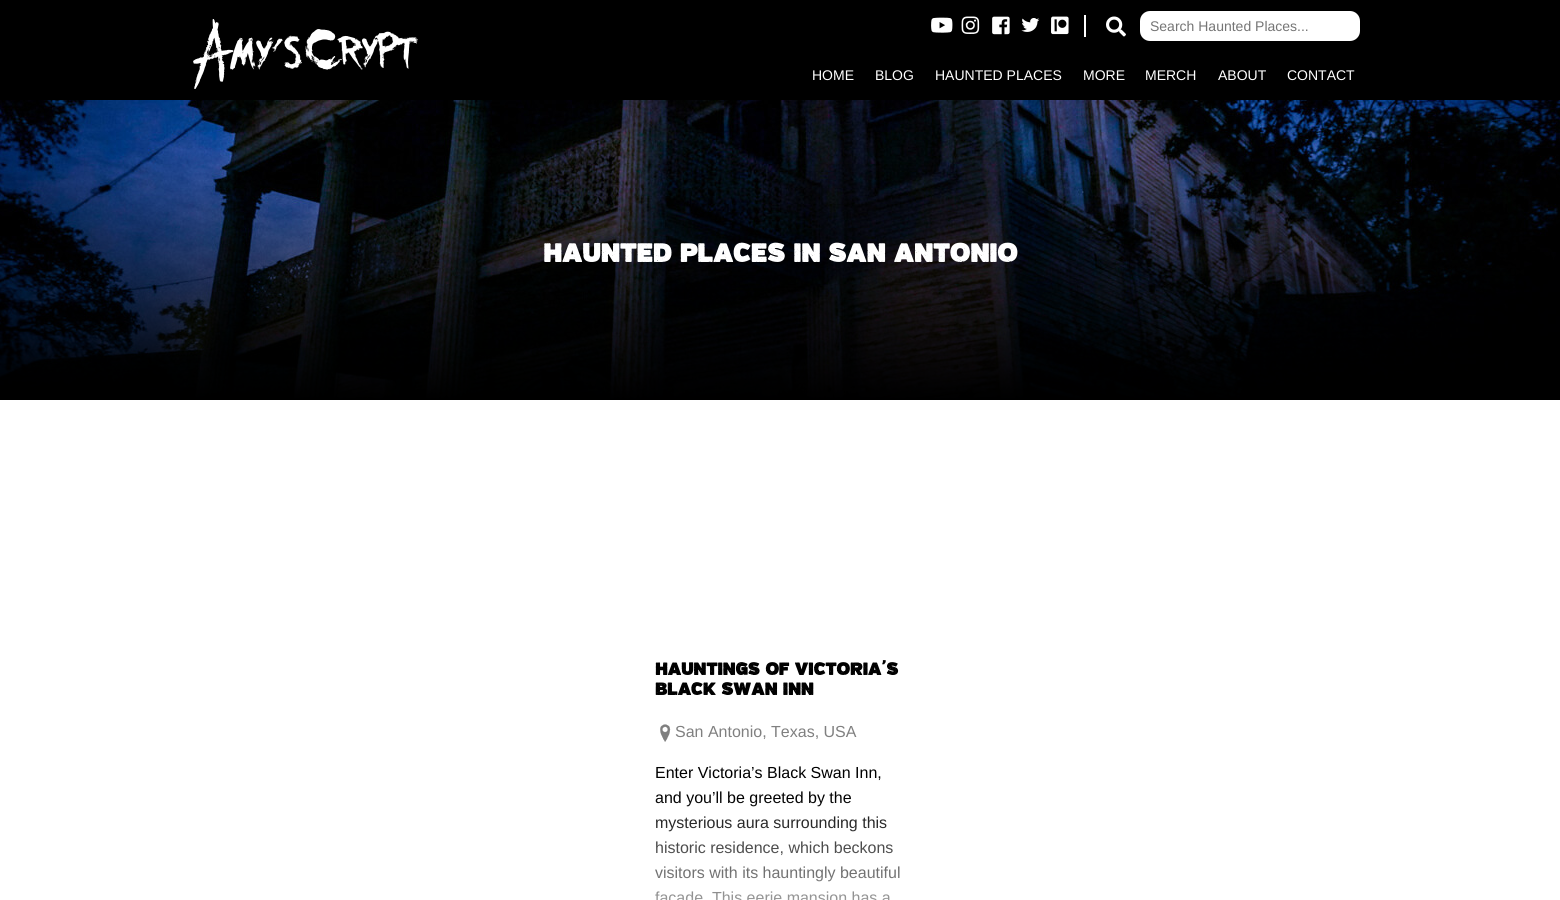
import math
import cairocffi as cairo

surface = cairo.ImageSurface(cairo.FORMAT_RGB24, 1560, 900)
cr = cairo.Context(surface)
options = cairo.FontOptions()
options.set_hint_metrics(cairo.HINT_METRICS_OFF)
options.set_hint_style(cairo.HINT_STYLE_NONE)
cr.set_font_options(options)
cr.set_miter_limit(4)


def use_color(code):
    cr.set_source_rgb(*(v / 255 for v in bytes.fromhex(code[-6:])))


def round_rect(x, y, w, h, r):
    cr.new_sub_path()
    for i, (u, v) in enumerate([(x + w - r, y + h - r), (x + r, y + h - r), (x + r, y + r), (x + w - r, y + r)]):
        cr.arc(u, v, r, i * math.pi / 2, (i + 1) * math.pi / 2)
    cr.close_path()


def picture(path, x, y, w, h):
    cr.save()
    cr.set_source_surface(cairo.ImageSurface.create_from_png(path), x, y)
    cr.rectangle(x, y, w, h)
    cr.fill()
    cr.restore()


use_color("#ffffff")
cr.paint()
use_color("#000000")
cr.rectangle(0, 0, 1560, 100)
cr.fill()
picture("img1.png", 193, 19, 225, 70)
picture("img2.png", 931, 17, 22, 16)
picture("img3.png", 961, 16, 19, 18)
picture("img4.png", 992, 16, 18, 19)
picture("img5.png", 1021, 18, 19, 14)
picture("img6.png", 1051, 16, 18, 19)
use_color("#ffffff")
cr.rectangle(1084, 15, 2, 22)
cr.fill()
picture("img7.png", 1106, 16, 20, 21)
round_rect(1140, 11, 220, 30, 10)
cr.fill()
cr.select_font_face("Liberation Sans")
cr.set_font_size(14)
use_color("#757575")
cr.move_to(1150, 31)
cr.show_text("Search Haunted Places...")
use_color("#ffffff")
cr.move_to(812, 80)
cr.show_text("HOME")
cr.move_to(875, 80)
cr.show_text("BLOG")
cr.move_to(935, 80)
cr.show_text("HAUNTED PLACES")
cr.move_to(1083, 80)
cr.show_text("MORE")
cr.move_to(1145, 80)
cr.show_text("MERCH")
cr.move_to(1218, 80)
cr.show_text("ABOUT")
cr.move_to(1287, 80)
cr.show_text("CONTACT")
picture("img8.png", 0, 100, 1560, 300)
cr.select_font_face("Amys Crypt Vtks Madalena", cairo.FONT_SLANT_NORMAL, cairo.FONT_WEIGHT_BOLD)
cr.set_font_size(30)
cr.move_to(543, 262)
cr.show_text("HAUNTED PLACES IN SAN ANTONIO")
cr.set_font_size(20)
use_color("#000000")
cr.move_to(655, 675)
cr.show_text("HAUNTINGS OF VICTORIA’S")
cr.move_to(655, 695)
cr.show_text("BLACK SWAN INN")
picture("img9.png", 660, 724, 11, 18)
cr.select_font_face("Liberation Sans")
cr.set_font_size(16)
use_color("#808080")
cr.move_to(675, 737)
cr.show_text("San Antonio, Texas, USA")
use_color("#000000")
cr.move_to(655, 778)
cr.show_text("Enter Victoria’s Black Swan Inn,")
cr.move_to(655, 803)
cr.show_text("and you’ll be greeted by the")
cr.move_to(655, 828)
cr.show_text("mysterious aura surrounding this")
cr.move_to(655, 853)
cr.show_text("historic residence, which beckons")
cr.move_to(655, 878)
cr.show_text("visitors with its hauntingly beautiful")
cr.move_to(655, 903)
cr.show_text("façade. This eerie mansion has a")
gradient = cairo.LinearGradient(780, 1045, 780, 795)
gradient.add_color_stop_rgba(0.3, 1, 1, 1, 1)
gradient.add_color_stop_rgba(1, 1, 1, 1, 0)
cr.set_source(gradient)
cr.rectangle(655, 799, 245, 101)
cr.fill()
surface.write_to_png("result.png")
